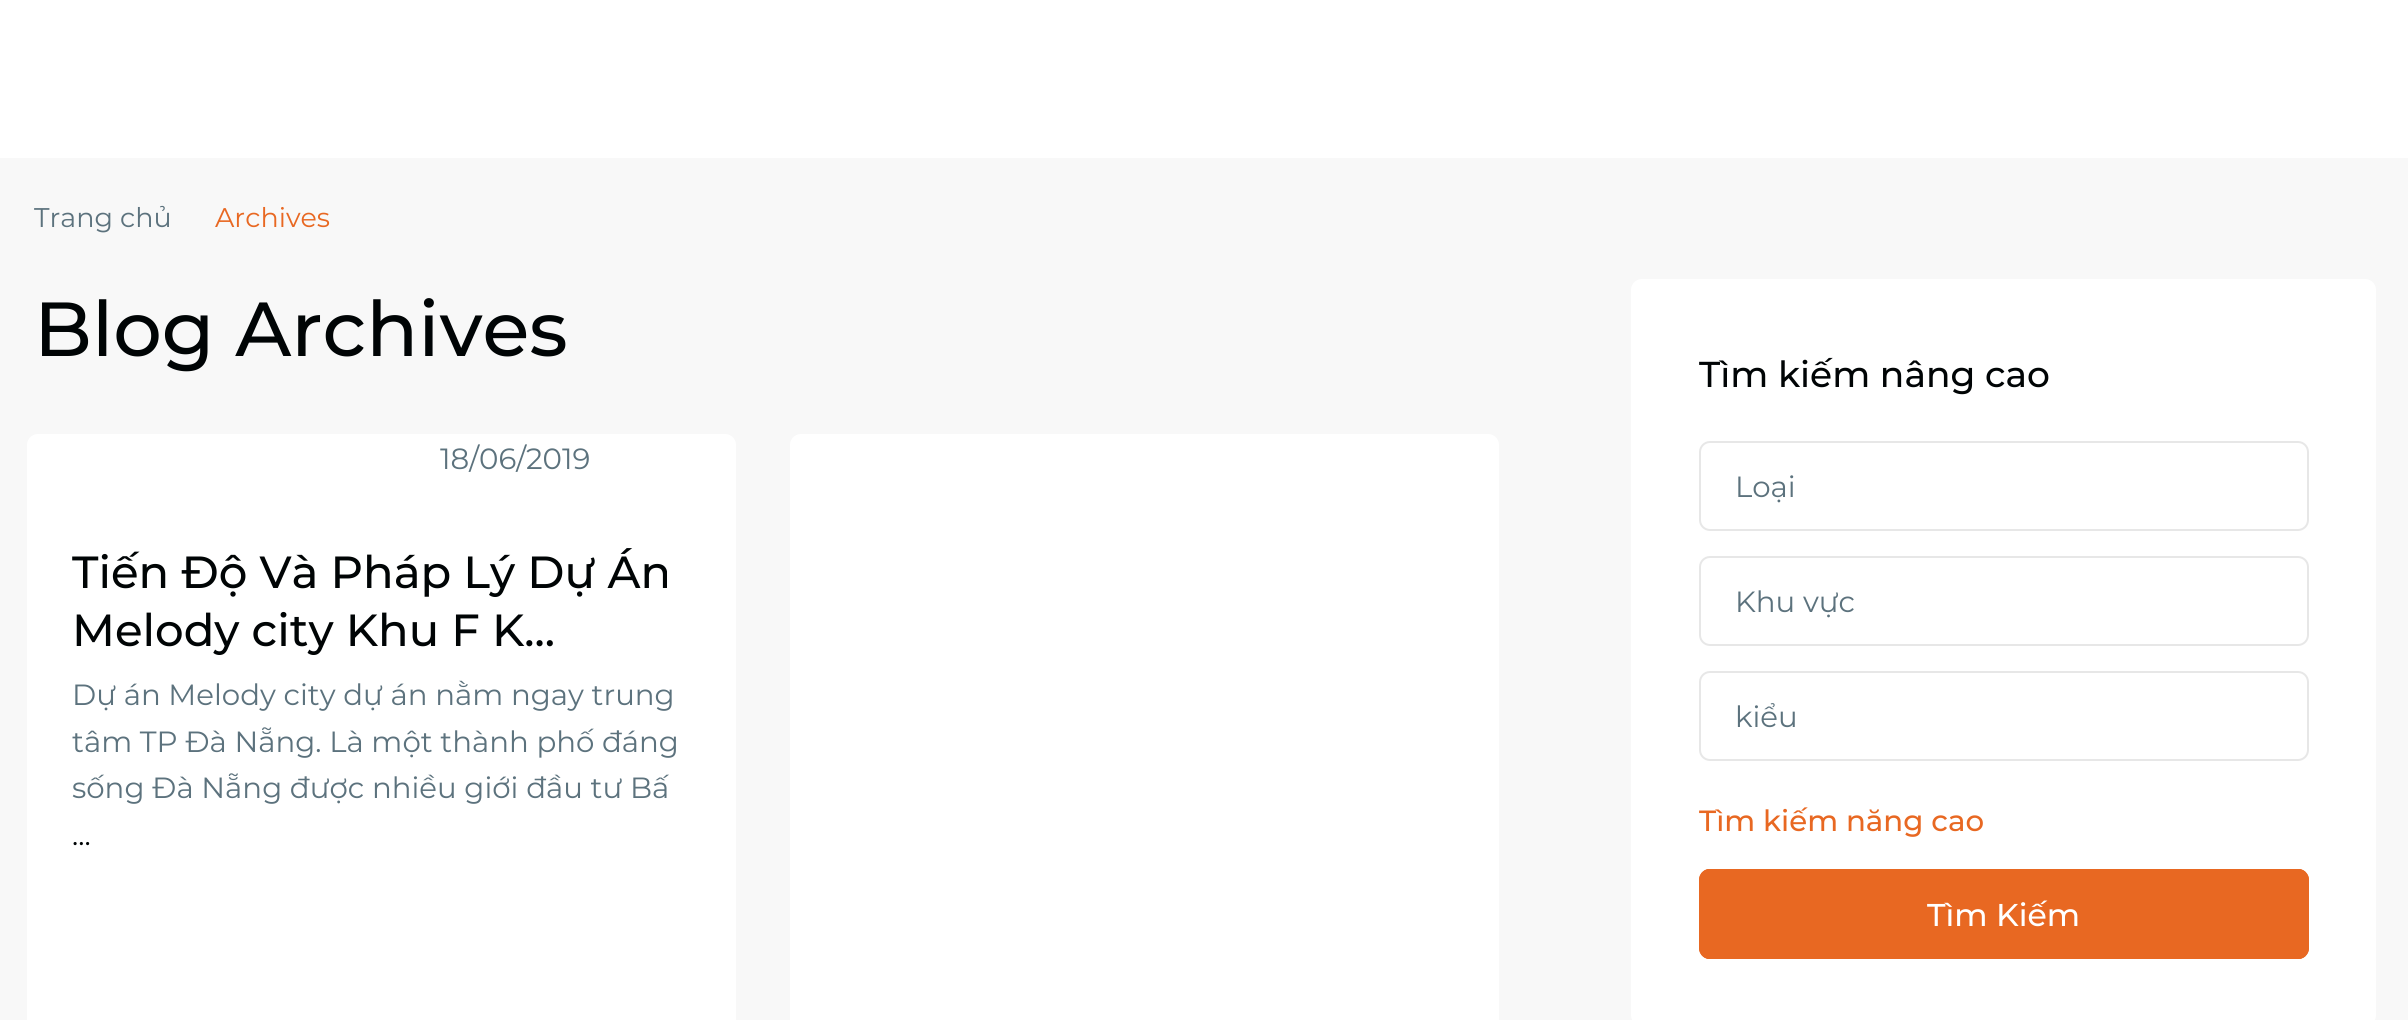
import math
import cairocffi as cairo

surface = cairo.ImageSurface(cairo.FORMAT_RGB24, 2408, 1020)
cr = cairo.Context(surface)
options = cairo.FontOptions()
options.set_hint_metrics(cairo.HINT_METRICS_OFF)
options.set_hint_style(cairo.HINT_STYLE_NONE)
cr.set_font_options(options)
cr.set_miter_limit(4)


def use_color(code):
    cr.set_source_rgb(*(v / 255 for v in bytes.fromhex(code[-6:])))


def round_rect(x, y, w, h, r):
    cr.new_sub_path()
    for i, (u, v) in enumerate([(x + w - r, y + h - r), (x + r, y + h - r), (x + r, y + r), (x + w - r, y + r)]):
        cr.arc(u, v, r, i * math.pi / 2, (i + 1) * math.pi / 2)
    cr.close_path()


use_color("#f8f8f8")
cr.paint()
use_color("#ffffff")
cr.rectangle(0, 0, 2408, 158)
cr.fill()
cr.select_font_face("Montserrat")
cr.set_font_size(27)
use_color("#5c727d")
cr.move_to(34, 227)
cr.show_text("Trang chủ")
use_color("#e86822")
cr.move_to(215, 227)
cr.show_text("Archives")
cr.select_font_face("Montserrat Medium")
cr.set_font_size(76.5)
use_color("#000405")
cr.move_to(34, 356)
cr.show_text("Blog Archives")
use_color("#ffffff")
round_rect(27, 434, 709, 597, 11)
cr.fill()
cr.select_font_face("Montserrat")
cr.set_font_size(29.25)
use_color("#5c727d")
cr.move_to(440, 469)
cr.show_text("18/06/2019")
cr.select_font_face("Montserrat Medium")
cr.set_font_size(45)
use_color("#000405")
cr.move_to(72, 588)
cr.show_text("Tiến Độ Và Pháp Lý Dự Án")
cr.move_to(72, 646)
cr.show_text("Melody city Khu F K...")
cr.select_font_face("Montserrat")
cr.set_font_size(29.25)
use_color("#5c727d")
cr.move_to(72, 705)
cr.show_text("Dự án Melody city dự án nằm ngay trung")
cr.move_to(72, 752)
cr.show_text("tâm TP Đà Nẵng. Là một thành phố đáng")
cr.move_to(72, 798)
cr.show_text("sống Đà Nẵng được nhiều giới đầu tư Bấ")
use_color("#000405")
cr.move_to(72, 845)
cr.show_text("...")
use_color("#ffffff")
round_rect(790, 434, 709, 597, 11)
cr.fill()
round_rect(1631, 279, 745, 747, 11)
cr.fill()
cr.select_font_face("Montserrat Medium")
cr.set_font_size(36)
use_color("#000405")
cr.move_to(1699, 387)
cr.show_text("Tìm kiếm nâng cao")
round_rect(1700, 442, 608, 88, 10)
use_color("#e7e7e7")
cr.stroke()
cr.select_font_face("Montserrat")
cr.set_font_size(29.25)
use_color("#5c727d")
cr.move_to(1735, 497)
cr.show_text("Loại")
round_rect(1700, 557, 608, 88, 10)
use_color("#e7e7e7")
cr.stroke()
use_color("#5c727d")
cr.move_to(1735, 612)
cr.show_text("Khu vực")
round_rect(1700, 672, 608, 88, 10)
use_color("#e7e7e7")
cr.stroke()
use_color("#5c727d")
cr.move_to(1735, 727)
cr.show_text("kiểu")
cr.select_font_face("Montserrat Medium")
use_color("#e86822")
cr.move_to(1699, 831)
cr.show_text("Tìm kiếm năng cao")
round_rect(1699, 869, 610, 90, 11)
cr.fill()
cr.save()
round_rect(1699, 869, 610, 90, 11)
cr.clip()
cr.rectangle(1701, 869, 605, 90)
cr.fill()
cr.restore()
round_rect(1700, 870, 608, 88, 10)
cr.stroke()
cr.set_font_size(31.5)
use_color("#ffffff")
cr.move_to(1927, 926)
cr.show_text("Tìm Kiếm")
surface.write_to_png("result.png")
